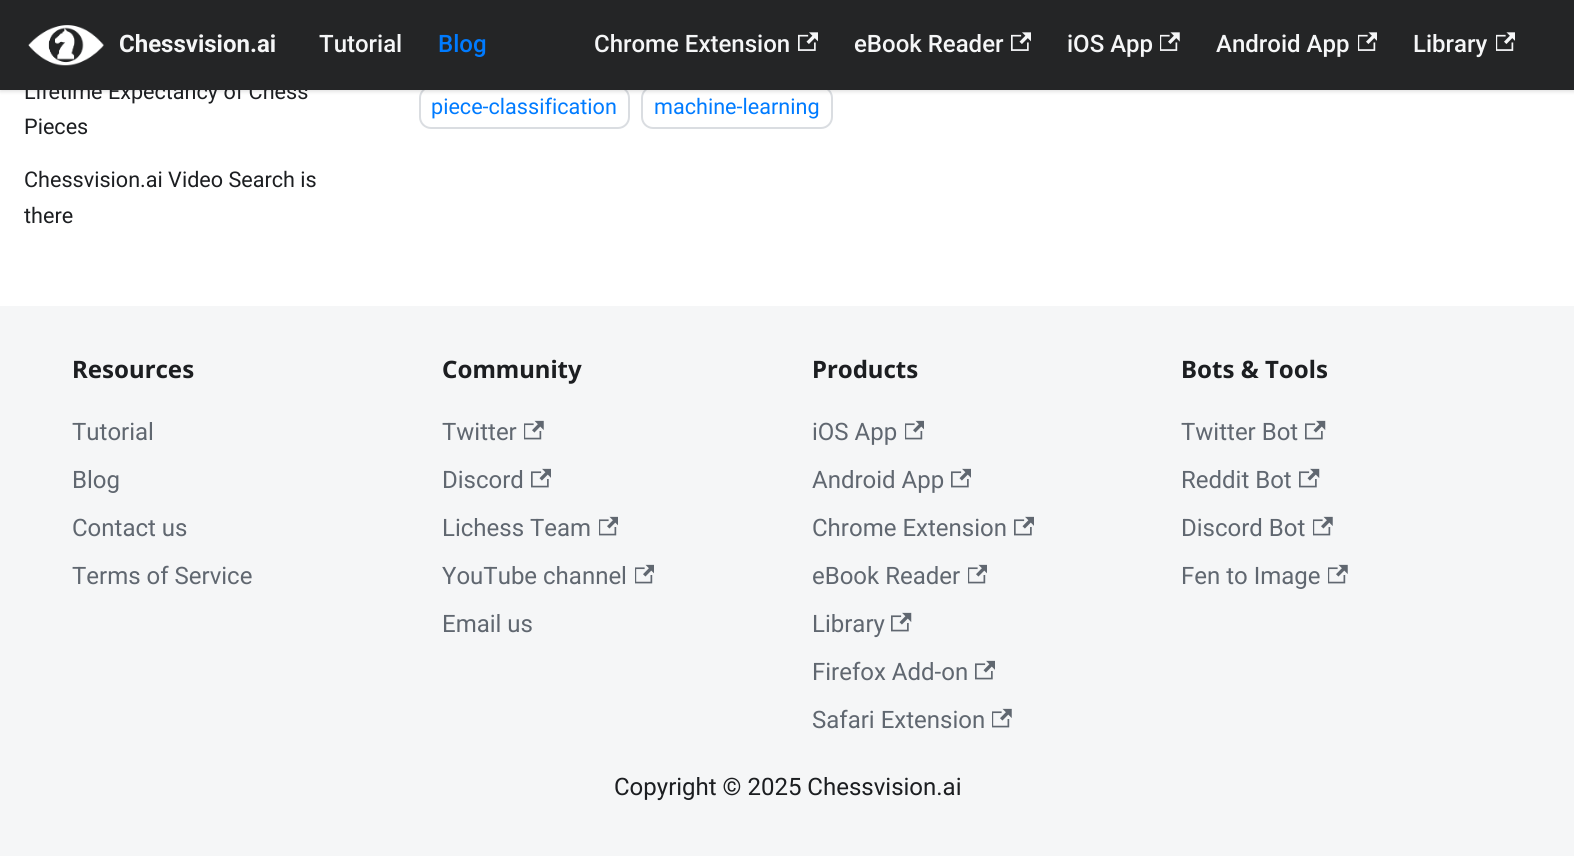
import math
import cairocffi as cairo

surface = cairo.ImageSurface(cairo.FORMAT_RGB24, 1574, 856)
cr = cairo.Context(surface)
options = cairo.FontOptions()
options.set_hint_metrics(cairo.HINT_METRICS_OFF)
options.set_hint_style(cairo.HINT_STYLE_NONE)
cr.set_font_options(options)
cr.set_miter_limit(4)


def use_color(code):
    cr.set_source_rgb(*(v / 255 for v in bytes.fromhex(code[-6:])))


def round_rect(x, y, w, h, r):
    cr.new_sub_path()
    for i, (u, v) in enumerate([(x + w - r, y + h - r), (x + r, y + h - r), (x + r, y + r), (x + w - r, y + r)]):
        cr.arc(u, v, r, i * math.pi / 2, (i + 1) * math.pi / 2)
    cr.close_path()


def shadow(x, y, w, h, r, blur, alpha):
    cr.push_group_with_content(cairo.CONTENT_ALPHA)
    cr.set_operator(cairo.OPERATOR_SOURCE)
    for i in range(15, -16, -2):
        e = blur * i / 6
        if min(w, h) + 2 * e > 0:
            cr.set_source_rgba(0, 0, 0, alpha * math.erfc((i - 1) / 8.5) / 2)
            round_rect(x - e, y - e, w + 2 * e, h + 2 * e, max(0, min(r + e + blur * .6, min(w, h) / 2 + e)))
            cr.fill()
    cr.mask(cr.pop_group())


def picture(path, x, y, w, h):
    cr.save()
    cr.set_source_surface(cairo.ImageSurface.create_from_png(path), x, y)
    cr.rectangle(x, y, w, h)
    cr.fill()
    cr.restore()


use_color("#ffffff")
cr.paint()
round_rect(420, 87, 209, 41, 11)
use_color("#dadde1")
cr.stroke()
round_rect(642, 87, 190, 41, 11)
cr.stroke()
use_color("#000000")
shadow(0, 2, 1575, 90, 0, 1.5, 0.1)
cr.select_font_face("Roboto")
cr.set_font_size(21.6)
use_color("#1c1e21")
cr.move_to(24, 99)
cr.show_text("Lifetime Expectancy of Chess")
use_color("#242526")
cr.rectangle(0, 0, 1574, 90)
cr.fill()
picture("img1.png", 28, 25, 76, 41)
cr.select_font_face("Roboto", cairo.FONT_SLANT_NORMAL, cairo.FONT_WEIGHT_BOLD)
cr.set_font_size(24)
use_color("#f5f6f7")
cr.move_to(119, 52)
cr.show_text("Chessvision.ai")
cr.select_font_face("Roboto Medium")
cr.move_to(319, 52)
cr.show_text("Tutorial")
use_color("#007bff")
cr.move_to(438, 52)
cr.show_text("Blog")
use_color("#f5f6f7")
cr.move_to(594, 52)
cr.show_text("Chrome Extension")
picture("img2.png", 798, 32, 20, 19)
cr.move_to(854, 52)
cr.show_text("eBook Reader")
picture("img2.png", 1011, 32, 20, 19)
cr.move_to(1067, 52)
cr.show_text("iOS App")
picture("img3.png", 1160, 32, 20, 19)
cr.move_to(1216, 52)
cr.show_text("Android App")
picture("img4.png", 1358, 32, 19, 19)
cr.move_to(1413, 52)
cr.show_text("Library")
picture("img4.png", 1496, 32, 19, 19)
cr.select_font_face("Roboto")
cr.set_font_size(21.6)
use_color("#1c1e21")
cr.move_to(24, 134)
cr.show_text("Pieces")
cr.move_to(24, 187)
cr.show_text("Chessvision.ai Video Search is")
cr.move_to(24, 223)
cr.show_text("there")
use_color("#007bff")
cr.move_to(431, 114)
cr.show_text("piece-classification")
cr.move_to(654, 114)
cr.show_text("machine-learning")
use_color("#f5f6f7")
cr.rectangle(0, 306, 1574, 550)
cr.fill()
cr.select_font_face("Noto Sans", cairo.FONT_SLANT_NORMAL, cairo.FONT_WEIGHT_BOLD)
cr.set_font_size(24)
use_color("#1c1e21")
cr.move_to(72, 378)
cr.show_text("Resources")
cr.select_font_face("Roboto")
use_color("#606770")
cr.move_to(72, 440)
cr.show_text("Tutorial")
cr.move_to(72, 488)
cr.show_text("Blog")
cr.move_to(72, 536)
cr.show_text("Contact us")
cr.move_to(72, 584)
cr.show_text("Terms of Service")
cr.select_font_face("Noto Sans", cairo.FONT_SLANT_NORMAL, cairo.FONT_WEIGHT_BOLD)
use_color("#1c1e21")
cr.move_to(442, 378)
cr.show_text("Community")
cr.select_font_face("Roboto")
use_color("#606770")
cr.move_to(442, 440)
cr.show_text("Twitter")
picture("img5.png", 524, 420, 20, 20)
cr.move_to(442, 488)
cr.show_text("Discord")
picture("img6.png", 531, 468, 20, 20)
cr.move_to(442, 536)
cr.show_text("Lichess Team")
picture("img7.png", 599, 516, 19, 20)
cr.move_to(442, 584)
cr.show_text("YouTube channel")
picture("img7.png", 635, 564, 19, 20)
cr.move_to(442, 632)
cr.show_text("Email us")
cr.select_font_face("Noto Sans", cairo.FONT_SLANT_NORMAL, cairo.FONT_WEIGHT_BOLD)
use_color("#1c1e21")
cr.move_to(812, 378)
cr.show_text("Products")
cr.select_font_face("Roboto")
use_color("#606770")
cr.move_to(812, 440)
cr.show_text("iOS App")
picture("img7.png", 905, 420, 19, 20)
cr.move_to(812, 488)
cr.show_text("Android App")
picture("img6.png", 951, 468, 20, 20)
cr.move_to(812, 536)
cr.show_text("Chrome Extension")
picture("img6.png", 1014, 516, 20, 20)
cr.move_to(812, 584)
cr.show_text("eBook Reader")
picture("img7.png", 968, 564, 19, 20)
cr.move_to(812, 632)
cr.show_text("Library")
picture("img8.png", 891, 612, 21, 20)
cr.move_to(812, 680)
cr.show_text("Firefox Add-on")
picture("img6.png", 975, 660, 20, 20)
cr.move_to(812, 728)
cr.show_text("Safari Extension")
picture("img5.png", 992, 708, 20, 20)
cr.select_font_face("Noto Sans", cairo.FONT_SLANT_NORMAL, cairo.FONT_WEIGHT_BOLD)
use_color("#1c1e21")
cr.move_to(1181, 378)
cr.show_text("Bots & Tools")
cr.select_font_face("Roboto")
use_color("#606770")
cr.move_to(1181, 440)
cr.show_text("Twitter Bot")
picture("img8.png", 1305, 420, 21, 20)
cr.move_to(1181, 488)
cr.show_text("Reddit Bot")
picture("img8.png", 1299, 468, 21, 20)
cr.move_to(1181, 536)
cr.show_text("Discord Bot")
picture("img5.png", 1313, 516, 20, 20)
cr.move_to(1181, 584)
cr.show_text("Fen to Image")
picture("img5.png", 1328, 564, 20, 20)
use_color("#1c1e21")
cr.move_to(614, 795)
cr.show_text("Copyright © 2025 Chessvision.ai")
surface.write_to_png("result.png")
